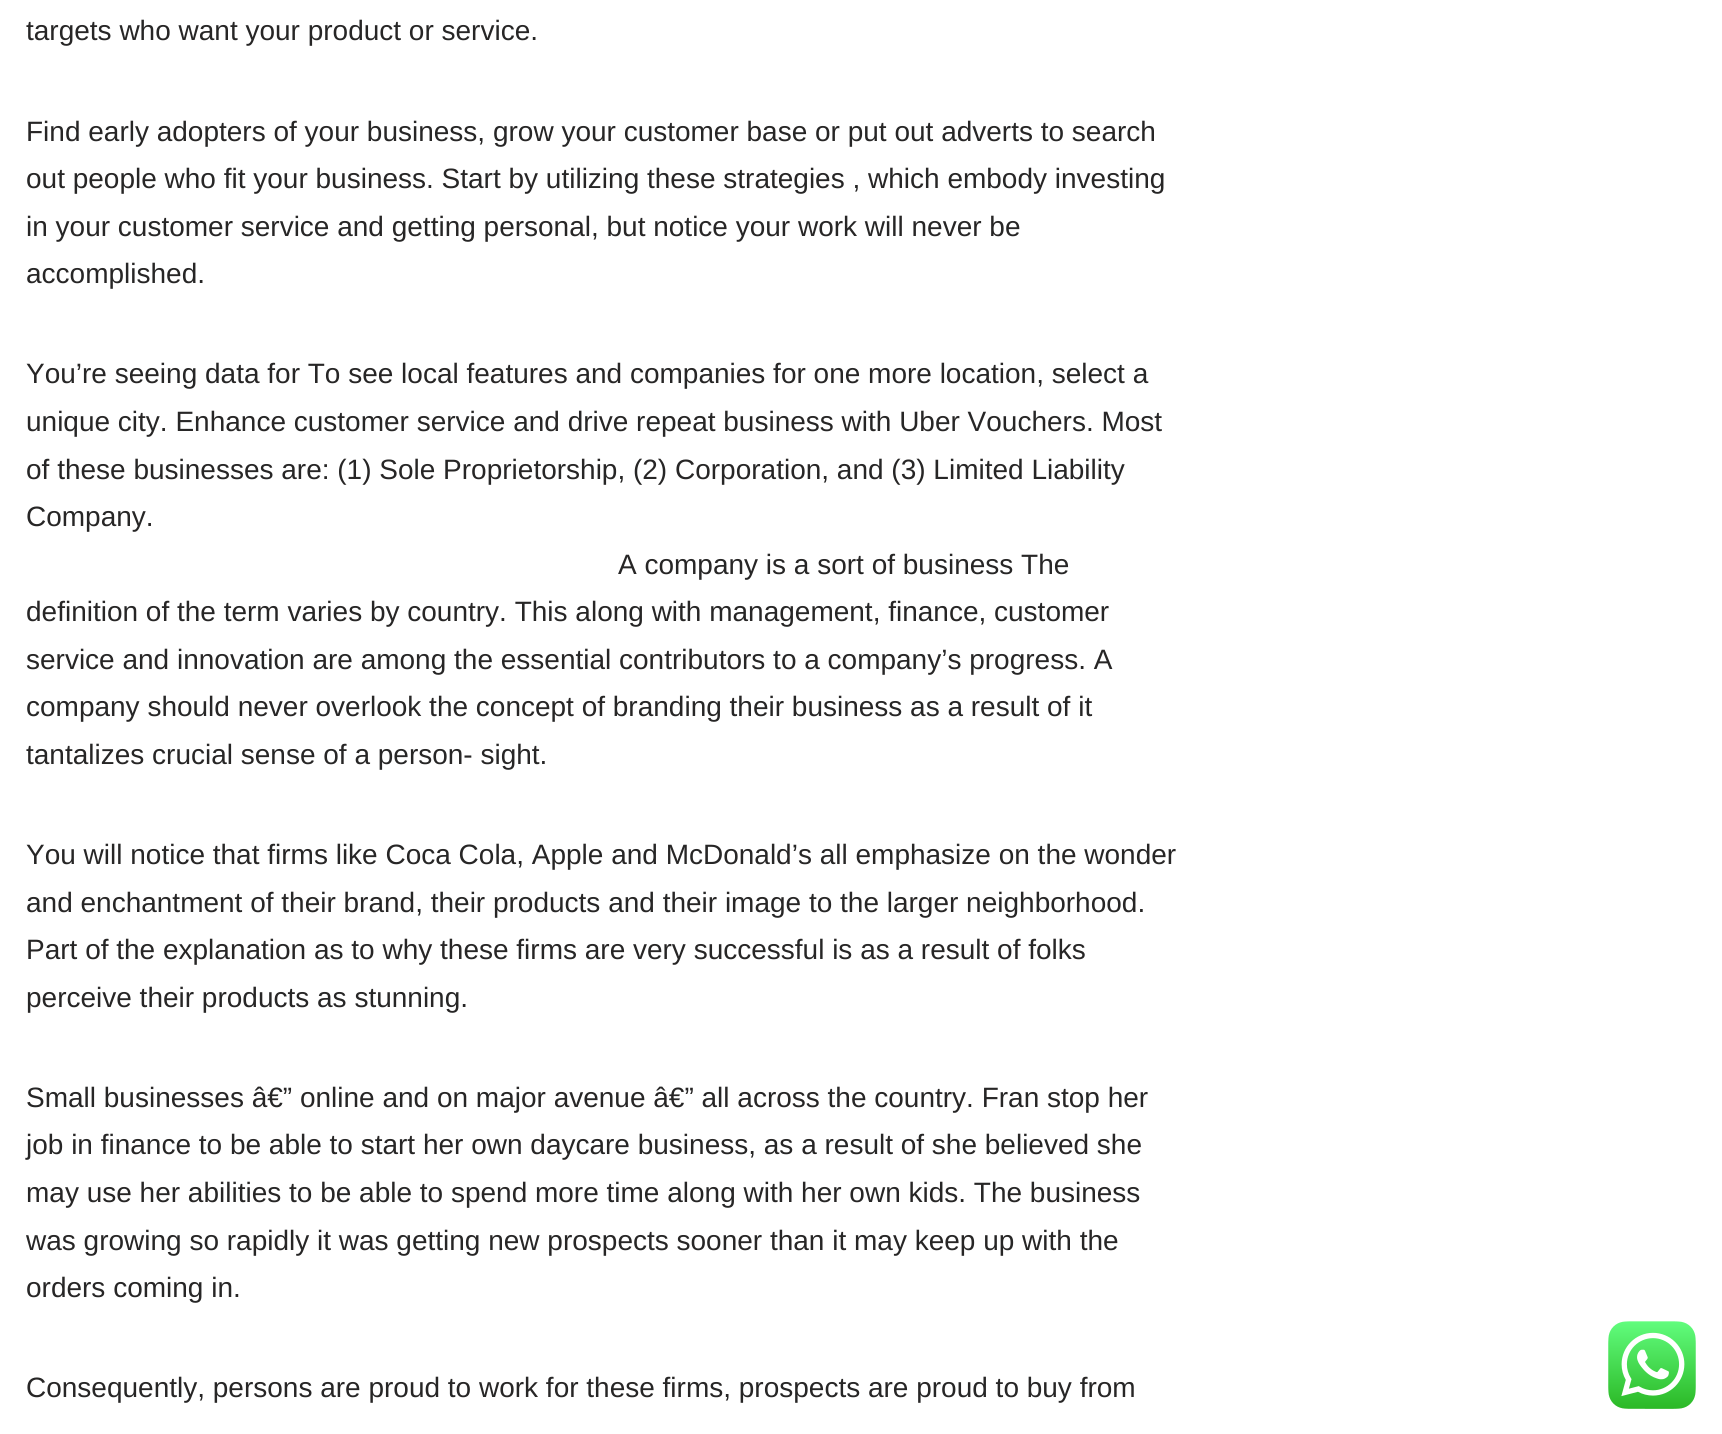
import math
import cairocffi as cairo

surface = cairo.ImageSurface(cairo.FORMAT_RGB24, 1722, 1434)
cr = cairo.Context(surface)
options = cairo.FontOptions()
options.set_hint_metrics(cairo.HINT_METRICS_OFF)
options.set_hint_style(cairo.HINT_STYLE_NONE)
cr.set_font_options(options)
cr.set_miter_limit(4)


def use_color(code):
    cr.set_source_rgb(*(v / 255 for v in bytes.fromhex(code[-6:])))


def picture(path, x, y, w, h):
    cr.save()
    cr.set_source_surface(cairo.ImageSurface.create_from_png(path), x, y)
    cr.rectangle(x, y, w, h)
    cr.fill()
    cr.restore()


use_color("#ffffff")
cr.paint()
cr.select_font_face("Liberation Sans")
cr.set_font_size(28)
use_color("#272626")
cr.move_to(26, 40)
cr.show_text("targets who want your product or service.")
cr.move_to(26, 141)
cr.show_text("Find early adopters of your business, grow your customer base or put out adverts to search")
cr.move_to(26, 188)
cr.show_text("out people who fit your business. Start by utilizing these strategies , which embody investing")
cr.move_to(26, 236)
cr.show_text("in your customer service and getting personal, but notice your work will never be")
cr.move_to(26, 283)
cr.show_text("accomplished.")
cr.move_to(26, 383)
cr.show_text("You’re seeing data for To see local features and companies for one more location, select a")
cr.move_to(26, 431)
cr.show_text("unique city. Enhance customer service and drive repeat business with Uber Vouchers. Most")
cr.move_to(26, 479)
cr.show_text("of these businesses are: (1) Sole Proprietorship, (2) Corporation, and (3) Limited Liability")
cr.move_to(26, 526)
cr.show_text("Company.")
cr.move_to(618, 574)
cr.show_text("A company is a sort of business The")
cr.move_to(26, 621)
cr.show_text("definition of the term varies by country. This along with management, finance, customer")
cr.move_to(26, 669)
cr.show_text("service and innovation are among the essential contributors to a company’s progress. A")
cr.move_to(26, 716)
cr.show_text("company should never overlook the concept of branding their business as a result of it")
cr.move_to(26, 764)
cr.show_text("tantalizes crucial sense of a person- sight.")
cr.move_to(26, 864)
cr.show_text("You will notice that firms like Coca Cola, Apple and McDonald’s all emphasize on the wonder")
cr.move_to(26, 912)
cr.show_text("and enchantment of their brand, their products and their image to the larger neighborhood.")
cr.move_to(26, 959)
cr.show_text("Part of the explanation as to why these firms are very successful is as a result of folks")
cr.move_to(26, 1007)
cr.show_text("perceive their products as stunning.")
cr.move_to(26, 1107)
cr.show_text("Small businesses â€” online and on major avenue â€” all across the country. Fran stop her")
cr.move_to(26, 1154)
cr.show_text("job in finance to be able to start her own daycare business, as a result of she believed she")
cr.move_to(26, 1202)
cr.show_text("may use her abilities to be able to spend more time along with her own kids. The business")
cr.move_to(26, 1250)
cr.show_text("was growing so rapidly it was getting new prospects sooner than it may keep up with the")
cr.move_to(26, 1297)
cr.show_text("orders coming in.")
cr.move_to(26, 1397)
cr.show_text("Consequently, persons are proud to work for these firms, prospects are proud to buy from")
picture("img1.png", 1608, 1321, 88, 88)
surface.write_to_png("result.png")
